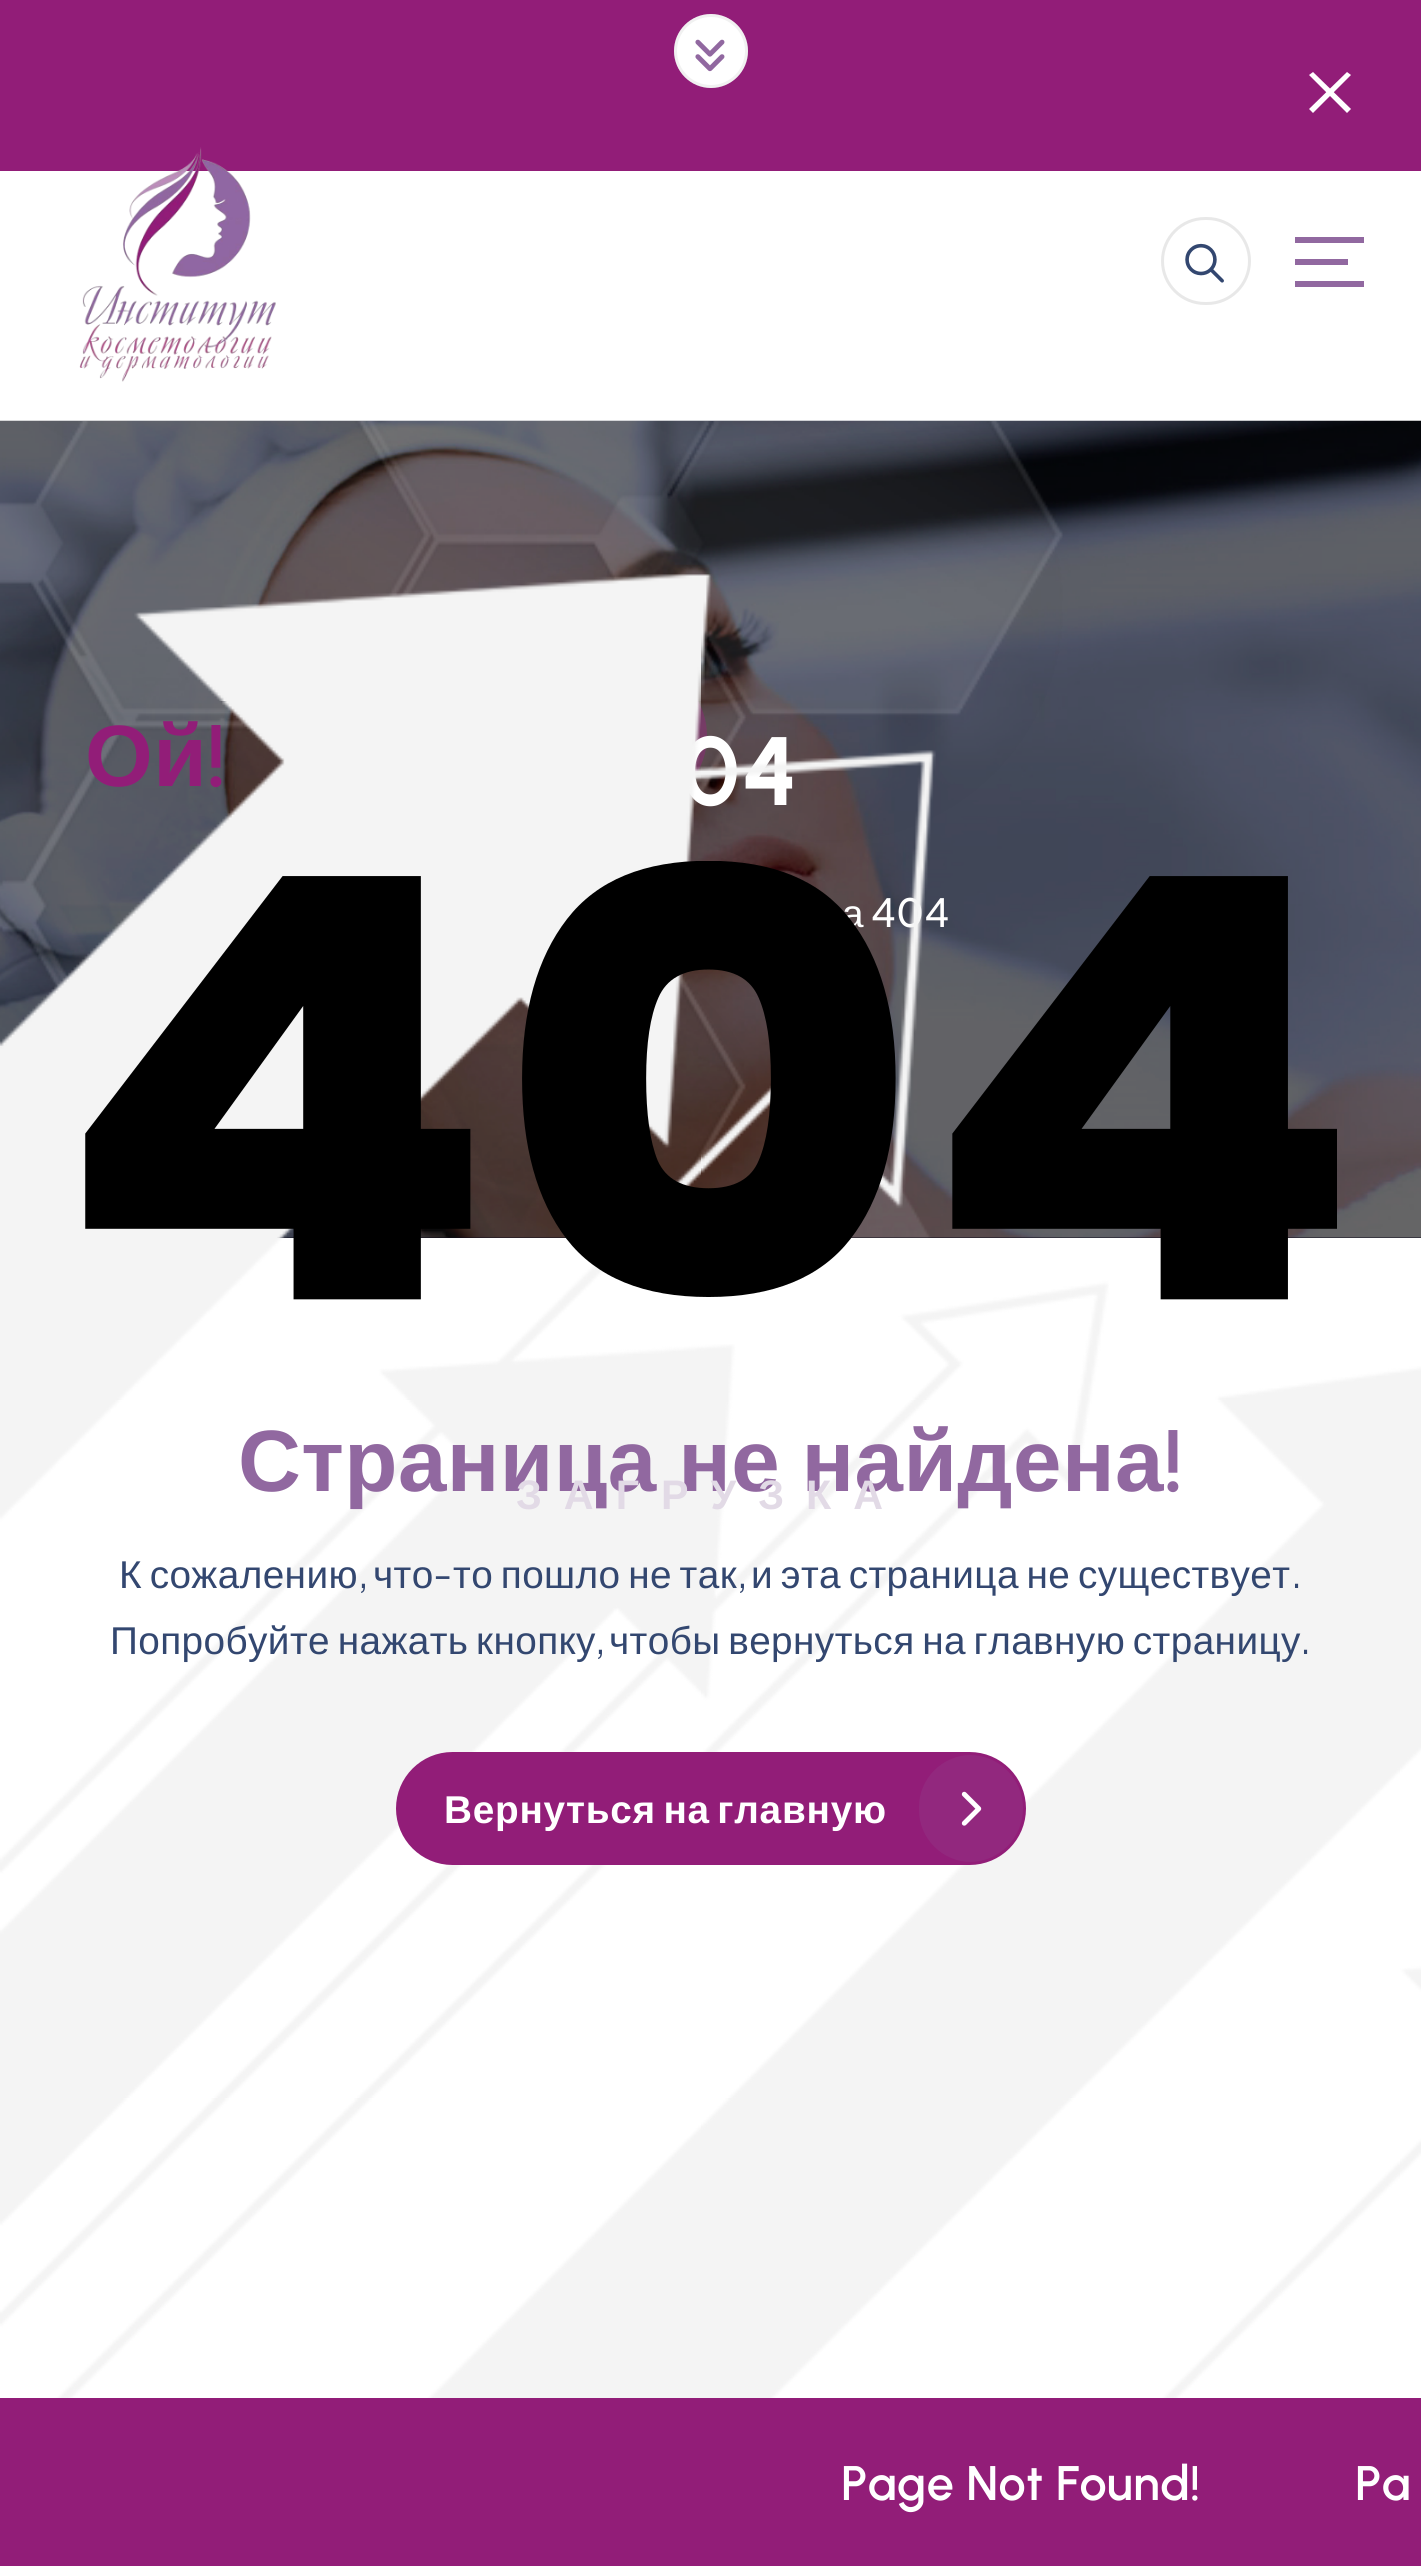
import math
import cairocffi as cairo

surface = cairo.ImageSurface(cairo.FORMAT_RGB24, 1421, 2566)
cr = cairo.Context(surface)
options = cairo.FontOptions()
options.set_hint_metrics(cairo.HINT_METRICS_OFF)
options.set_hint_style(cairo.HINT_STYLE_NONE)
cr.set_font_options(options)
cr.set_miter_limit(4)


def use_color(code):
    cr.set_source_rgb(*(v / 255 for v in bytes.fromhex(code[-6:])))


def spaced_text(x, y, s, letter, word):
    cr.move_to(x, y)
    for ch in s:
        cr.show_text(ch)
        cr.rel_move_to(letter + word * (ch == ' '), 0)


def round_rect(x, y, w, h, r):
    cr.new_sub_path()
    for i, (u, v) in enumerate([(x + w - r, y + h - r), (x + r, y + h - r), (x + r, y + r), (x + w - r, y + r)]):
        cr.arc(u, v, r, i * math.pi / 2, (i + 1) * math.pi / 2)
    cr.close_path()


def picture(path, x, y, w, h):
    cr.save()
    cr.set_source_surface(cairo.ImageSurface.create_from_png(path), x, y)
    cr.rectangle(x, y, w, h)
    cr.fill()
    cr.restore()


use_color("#ffffff")
cr.paint()
use_color("#921d78")
cr.rectangle(0, 0, 1421, 171)
cr.fill()
use_color("#ffffff")
cr.arc(711, 51, 37, 0, 2 * math.pi)
cr.fill()
cr.arc(711, 51, 35.5, 0, 2 * math.pi)
cr.set_source_rgba(0.741, 0.741, 0.741, 0.2)
cr.set_line_width(3)
cr.stroke()
picture("img1.png", 695, 39, 30, 33)
picture("img2.png", 79, 147, 197, 235)
picture("img3.png", 1185, 243, 39, 40)
round_rect(1162.5, 218.5, 87, 85, 42.5)
use_color("#e8e8e8")
cr.stroke()
use_color("#9168a0")
cr.rectangle(1295, 237, 69, 6)
cr.fill()
cr.rectangle(1295, 259, 53, 6)
cr.fill()
cr.rectangle(1295, 281, 69, 6)
cr.fill()
use_color("#0f0d1d")
cr.rectangle(277, 1237, 1144, 1)
cr.fill()
picture("img7.png", 0, 420, 1421, 818)
cr.set_source_rgba(0.573, 0.114, 0.471, 0.5)
cr.arc(634, 736, 73, 0, 2 * math.pi)
cr.fill()
picture("img8.png", 0, 421, 1063, 817)
cr.select_font_face("Urbanist", cairo.FONT_SLANT_NORMAL, cairo.FONT_WEIGHT_BOLD)
cr.set_font_size(97)
use_color("#ffffff")
spaced_text(681, 805, "04", 2, 0)
cr.select_font_face("Liberation Sans")
cr.set_font_size(38.75)
spaced_text(842, 927, "а", 0.4, 0)
cr.select_font_face("Plus Jakarta Sans Medium")
spaced_text(871, 927, "404", 0.4, 0)
picture("img4.png", 0, 574, 1421, 1824)
cr.select_font_face("Liberation Sans", cairo.FONT_SLANT_NORMAL, cairo.FONT_WEIGHT_BOLD)
cr.set_font_size(87.1)
use_color("#921d78")
spaced_text(85, 786, "Ой", 0.4, 0)
cr.select_font_face("Urbanist", cairo.FONT_SLANT_NORMAL, cairo.FONT_WEIGHT_BOLD)
spaced_text(207, 786, "!", 0.4, 0)
picture("img5.png", 85, 861, 1252, 439)
cr.select_font_face("Liberation Sans", cairo.FONT_SLANT_NORMAL, cairo.FONT_WEIGHT_BOLD)
use_color("#9168a0")
spaced_text(238, 1491, "Страница не найдена", 0.4, -3)
cr.select_font_face("Urbanist", cairo.FONT_SLANT_NORMAL, cairo.FONT_WEIGHT_BOLD)
spaced_text(1164, 1491, "!", 0.4, 0)
cr.select_font_face("Liberation Sans")
cr.set_font_size(38.75)
use_color("#334770")
spaced_text(119, 1588, "К сожалению", 0.4, -3.5)
spaced_text(373, 1588, "что", 0.4, 0)
cr.select_font_face("Plus Jakarta Sans")
spaced_text(433, 1588, "-", 0.4, 0)
cr.select_font_face("Liberation Sans")
spaced_text(453, 1588, "то пошло не так", 0.4, -3.5)
spaced_text(751, 1588, "и эта страница не существует", 0.4, -3.5)
cr.select_font_face("Plus Jakarta Sans")
spaced_text(358, 1588, ",", 0.4, 0)
spaced_text(737, 1588, ",", 0.4, 0)
spaced_text(1291, 1588, ".", 0.4, 0)
cr.select_font_face("Liberation Sans")
spaced_text(110, 1654, "Попробуйте нажать кнопку", 0.4, -3.5)
cr.select_font_face("Plus Jakarta Sans")
spaced_text(595, 1654, ",", 0.4, 0)
cr.select_font_face("Liberation Sans")
spaced_text(609, 1654, "чтобы вернуться на главную страницу", 0.4, -3.5)
cr.select_font_face("Plus Jakarta Sans")
spaced_text(1300, 1654, ".", 0.4, 0)
use_color("#921d78")
round_rect(397.5, 1753.5, 627, 110, 55)
cr.fill_preserve()
cr.stroke()
use_color("#92287e")
cr.new_path()
cr.move_to(971, 1755)
cr.line_to(969.5, 1755)
cr.curve_to(999, 1755, 1023, 1779, 1023, 1808.5)
cr.curve_to(1023, 1838, 999, 1862, 969.5, 1862)
cr.line_to(971, 1862)
cr.curve_to(942.5, 1862, 919, 1838.5, 919, 1810)
cr.line_to(919, 1807)
cr.curve_to(919, 1778.5, 942.5, 1755, 971, 1755)
cr.close_path()
cr.fill()
cr.select_font_face("Liberation Sans", cairo.FONT_SLANT_NORMAL, cairo.FONT_WEIGHT_BOLD)
use_color("#ffffff")
spaced_text(444, 1823, "Вернуться на главную", 0.75, -4)
picture("img6.png", 961, 1791, 21, 35)
use_color("#921d78")
cr.rectangle(0, 2398, 1421, 168)
cr.fill()
cr.select_font_face("Urbanist SemiBold")
cr.set_font_size(48.5)
use_color("#ffffff")
spaced_text(841, 2500, "Page Not Found!", 0.4, 0)
spaced_text(1355, 2500, "Pa", 0.4, 0)
cr.new_path()
cr.move_to(1309, 109)
cr.line_to(1347, 72)
cr.line_to(1351, 75)
cr.line_to(1313, 113)
cr.close_path()
cr.fill()
cr.new_path()
cr.move_to(1347, 113)
cr.line_to(1309, 75)
cr.line_to(1313, 72)
cr.line_to(1351, 109)
cr.close_path()
cr.fill()
cr.select_font_face("Liberation Sans", cairo.FONT_SLANT_NORMAL, cairo.FONT_WEIGHT_BOLD)
cr.set_font_size(41.25)
use_color("#e2dae6")
spaced_text(516, 1509, "ЗАГРУЗКА", 22, 0)
surface.write_to_png("result.png")
